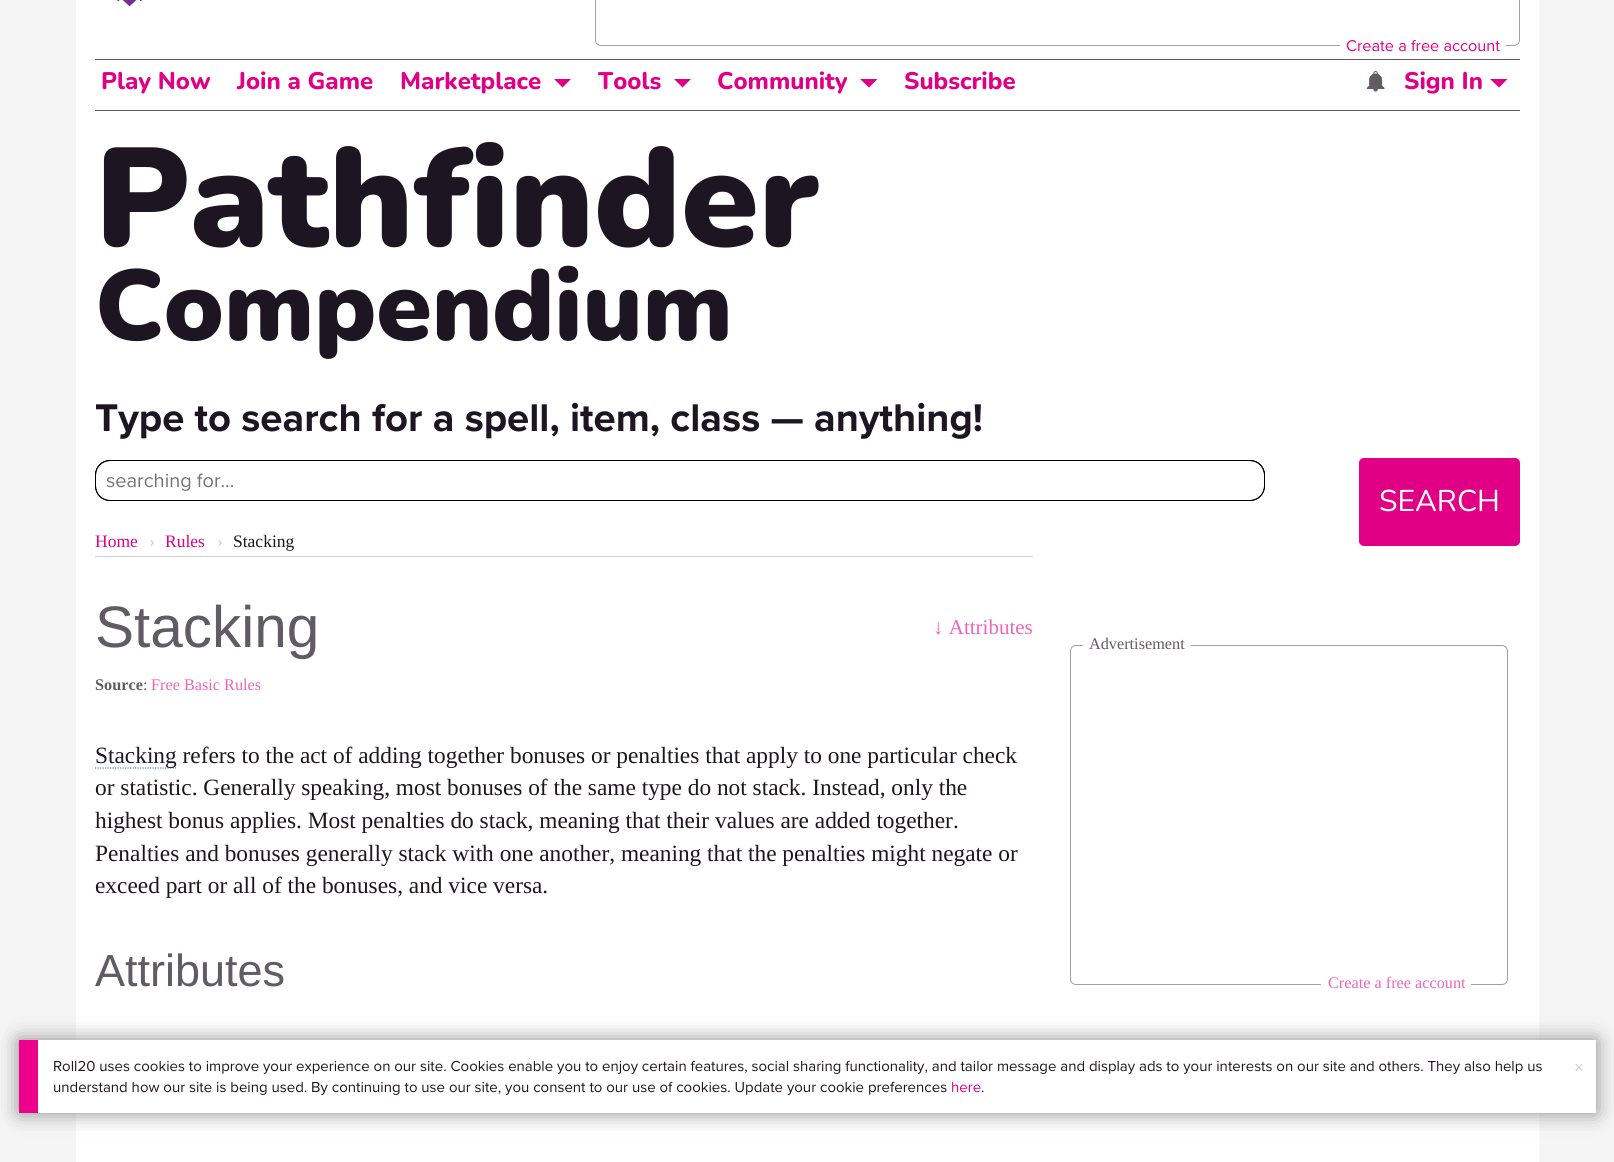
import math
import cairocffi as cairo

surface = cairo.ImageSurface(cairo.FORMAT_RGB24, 1614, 1162)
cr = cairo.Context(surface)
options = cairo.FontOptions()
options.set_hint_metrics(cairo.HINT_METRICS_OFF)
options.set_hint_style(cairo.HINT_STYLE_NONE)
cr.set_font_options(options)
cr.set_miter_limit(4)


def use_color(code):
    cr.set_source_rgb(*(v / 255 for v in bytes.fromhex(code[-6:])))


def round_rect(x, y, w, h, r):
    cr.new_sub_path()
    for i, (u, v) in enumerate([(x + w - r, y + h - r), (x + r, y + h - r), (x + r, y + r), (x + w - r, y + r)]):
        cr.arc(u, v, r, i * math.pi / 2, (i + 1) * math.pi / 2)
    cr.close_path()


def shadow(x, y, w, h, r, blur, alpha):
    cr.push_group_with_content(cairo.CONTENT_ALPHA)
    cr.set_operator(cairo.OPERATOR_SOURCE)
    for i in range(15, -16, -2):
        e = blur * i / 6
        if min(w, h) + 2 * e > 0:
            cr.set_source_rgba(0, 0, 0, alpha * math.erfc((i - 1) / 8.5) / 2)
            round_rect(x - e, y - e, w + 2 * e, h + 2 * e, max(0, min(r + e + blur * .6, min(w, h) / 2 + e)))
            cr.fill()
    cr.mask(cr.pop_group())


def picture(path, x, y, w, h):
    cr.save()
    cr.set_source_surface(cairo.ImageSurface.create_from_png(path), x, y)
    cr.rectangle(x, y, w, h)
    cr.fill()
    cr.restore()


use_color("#f5f5f5")
cr.paint()
use_color("#ffffff")
cr.rectangle(76, 0, 1463, 1162)
cr.fill()
picture("img1.png", 116, 0, 27, 6)
round_rect(595.5, -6.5, 924, 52, 5.5)
use_color("#a5a1a7")
cr.set_line_width(1)
cr.stroke()
use_color("#ffffff")
cr.rectangle(1340, 45, 166, 1)
cr.fill()
cr.select_font_face("Proxima Nova")
cr.set_font_size(16.25)
use_color("#e10085")
cr.move_to(1346, 51)
cr.show_text("Create a free account")
use_color("#625b65")
cr.rectangle(95, 59, 1425, 1)
cr.fill()
cr.rectangle(95, 110, 1425, 1)
cr.fill()
cr.select_font_face("Nunito ExtraBold")
cr.set_font_size(24)
use_color("#e10085")
cr.move_to(101, 89)
cr.show_text("Play Now")
cr.move_to(237, 89)
cr.show_text("Join a Game")
cr.move_to(400, 89)
cr.show_text("Marketplace")
cr.new_path()
cr.move_to(554, 79)
cr.line_to(571, 79)
cr.line_to(562.5, 87.5)
cr.close_path()
cr.fill()
cr.move_to(598, 89)
cr.show_text("Tools")
cr.new_path()
cr.move_to(674, 79)
cr.line_to(691, 79)
cr.line_to(682.5, 87.5)
cr.close_path()
cr.fill()
cr.move_to(717, 89)
cr.show_text("Community")
cr.new_path()
cr.move_to(860, 79)
cr.line_to(877.5, 79)
cr.line_to(869, 87.5)
cr.close_path()
cr.fill()
cr.move_to(904, 89)
cr.show_text("Subscribe")
cr.select_font_face("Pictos")
use_color("#625b65")
cr.move_to(1366, 88)
cr.show_text(":")
cr.select_font_face("Nunito ExtraBold")
use_color("#e10085")
cr.move_to(1404, 89)
cr.show_text("Sign In")
cr.new_path()
cr.move_to(1490, 79)
cr.line_to(1507.5, 79)
cr.line_to(1499, 87.5)
cr.close_path()
cr.fill()
cr.select_font_face("Nunito Black")
cr.set_font_size(140)
use_color("#1e1523")
cr.move_to(95, 246)
cr.show_text("Pathfinder")
cr.set_font_size(100)
cr.move_to(95, 340)
cr.show_text("Compendium")
cr.select_font_face("Proxima Nova", cairo.FONT_SLANT_NORMAL, cairo.FONT_WEIGHT_BOLD)
cr.set_font_size(40)
cr.move_to(95, 431)
cr.show_text("Type to search for a spell, item, class — anything!")
round_rect(95.5, 460.5, 1169, 40, 14.5)
use_color("#000000")
cr.stroke()
round_rect(95.5, 460.5, 1169, 40, 14.5)
cr.stroke()
cr.select_font_face("Proxima Nova")
cr.set_font_size(20)
use_color("#757575")
cr.move_to(106, 487)
cr.show_text("searching for...")
use_color("#e10085")
round_rect(1359.5, 458.5, 160, 87, 4.5)
cr.fill_preserve()
cr.stroke()
cr.select_font_face("Nunito")
cr.set_font_size(30)
use_color("#ffffff")
cr.move_to(1379, 511)
cr.show_text("SEARCH")
use_color("#d1d1d1")
cr.rectangle(95, 556, 938, 1)
cr.fill()
cr.select_font_face("Liberation Serif")
cr.set_font_size(17.5)
use_color("#e10085")
cr.move_to(95, 547)
cr.show_text("Home")
use_color("#cccccc")
cr.move_to(149, 547)
cr.show_text("›")
use_color("#e10085")
cr.move_to(165, 547)
cr.show_text("Rules")
use_color("#cccccc")
cr.move_to(217, 547)
cr.show_text("›")
use_color("#1e1523")
cr.move_to(233, 547)
cr.show_text("Stacking")
cr.select_font_face("Liberation Sans")
cr.set_font_size(58.5)
use_color("#625b65")
cr.move_to(95, 647)
cr.show_text("Stacking")
cr.select_font_face("Liberation Serif")
cr.set_font_size(21)
use_color("#ed66b6")
cr.move_to(933, 634)
cr.show_text("↓ Attributes")
cr.select_font_face("Liberation Serif", cairo.FONT_SLANT_NORMAL, cairo.FONT_WEIGHT_BOLD)
cr.set_font_size(16.25)
use_color("#625b65")
cr.move_to(95, 690)
cr.show_text("Source")
cr.select_font_face("Liberation Serif")
cr.move_to(143, 690)
cr.show_text(":")
use_color("#ed66b6")
cr.move_to(151, 690)
cr.show_text("Free Basic Rules")
cr.new_path()
cr.move_to(95, 768)
cr.line_to(176, 768)
use_color("#418fde")
cr.set_line_width(1.2)
cr.set_dash([1.25, 1.25])
cr.stroke()
cr.set_font_size(23.35)
use_color("#1e1523")
cr.move_to(95, 763)
cr.show_text("Stacking refers to the act of adding together bonuses or penalties that apply to one particular check")
cr.move_to(95, 795)
cr.show_text("or statistic. Generally speaking, most bonuses of the same type do not stack. Instead, only the")
cr.move_to(95, 828)
cr.show_text("highest bonus applies. Most penalties do stack, meaning that their values are added together.")
cr.move_to(95, 861)
cr.show_text("Penalties and bonuses generally stack with one another, meaning that the penalties might negate or")
cr.move_to(95, 893)
cr.show_text("exceed part or all of the bonuses, and vice versa.")
cr.select_font_face("Liberation Sans")
cr.set_font_size(45)
use_color("#625b65")
cr.move_to(95, 986)
cr.show_text("Attributes")
round_rect(1070.5, 645.5, 437, 339, 5.5)
use_color("#a1a1a1")
cr.set_line_width(1)
cr.set_dash([])
cr.stroke()
use_color("#ffffff")
cr.rectangle(1083, 645, 108, 1)
cr.fill()
cr.select_font_face("Liberation Serif")
cr.set_font_size(16.25)
use_color("#625b65")
cr.move_to(1089, 649)
cr.show_text("Advertisement")
use_color("#ffffff")
cr.rectangle(1321, 984, 150, 1)
cr.fill()
use_color("#ed66b6")
cr.move_to(1328, 988)
cr.show_text("Create a free account")
use_color("#888888")
shadow(19, 1040, 1577, 73, 0, 10, 1)
use_color("#ffffff")
cr.rectangle(38, 1040, 1558, 73)
cr.fill()
use_color("#ec008c")
cr.rectangle(19, 1040, 19, 73)
cr.fill()
cr.select_font_face("Proxima Nova")
cr.set_font_size(15)
use_color("#1e1523")
cr.move_to(53, 1071)
cr.show_text("Roll20 uses cookies to improve your experience on our site. Cookies enable you to enjoy certain features, social sharing functionality, and tailor message and display ads to your interests on our site and others. They also help us")
cr.move_to(53, 1092)
cr.show_text("understand how our site is being used. By continuing to use our site, you consent to our use of cookies. Update your cookie preferences")
use_color("#e10085")
cr.move_to(951, 1092)
cr.show_text("here")
use_color("#1e1523")
cr.move_to(981, 1092)
cr.show_text(".")
cr.set_font_size(20)
use_color("#cccccc")
cr.move_to(1574, 1074)
cr.show_text("×")
surface.write_to_png("result.png")
